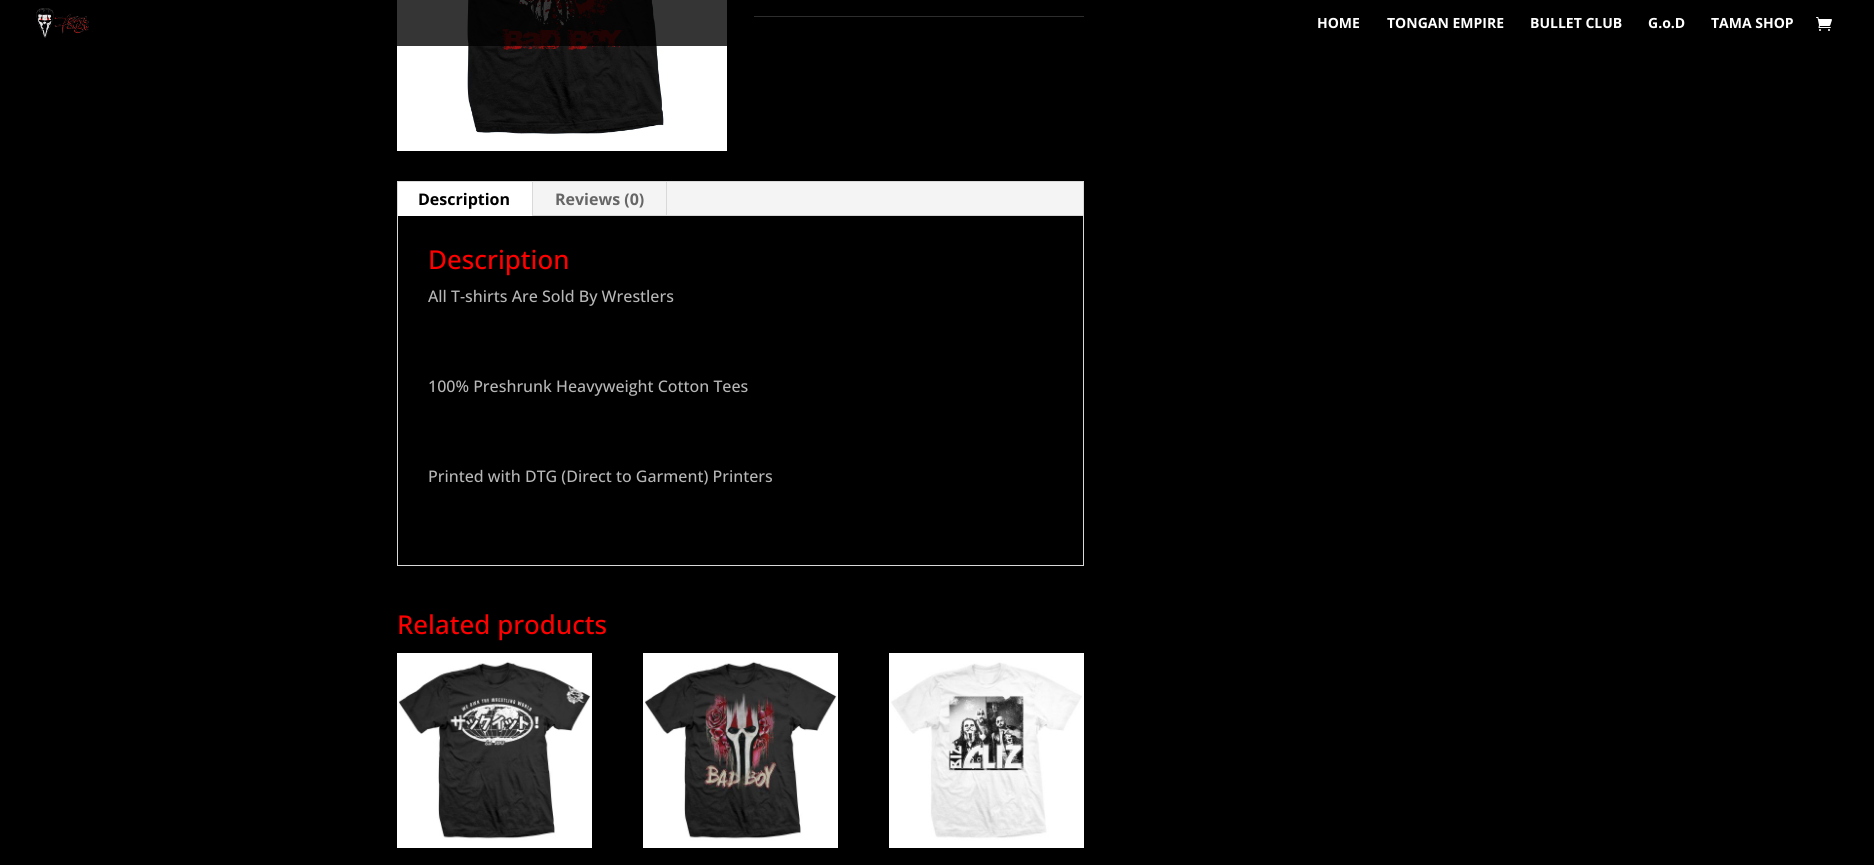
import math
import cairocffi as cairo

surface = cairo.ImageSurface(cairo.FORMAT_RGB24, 1874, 865)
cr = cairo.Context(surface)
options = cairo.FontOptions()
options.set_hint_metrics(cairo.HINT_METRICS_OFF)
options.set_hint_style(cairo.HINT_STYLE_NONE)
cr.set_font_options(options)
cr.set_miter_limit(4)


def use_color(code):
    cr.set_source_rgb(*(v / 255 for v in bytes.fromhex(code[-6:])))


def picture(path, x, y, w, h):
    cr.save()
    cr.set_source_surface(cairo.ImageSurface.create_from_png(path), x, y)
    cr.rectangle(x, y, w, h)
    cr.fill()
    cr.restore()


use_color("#000000")
cr.paint()
picture("img3.png", 397, 0, 330, 151)
use_color("#dadada")
cr.rectangle(754, 16, 330, 1)
cr.fill()
cr.set_source_rgba(0, 0, 0, 0.79)
cr.rectangle(397, 0, 687, 46)
cr.fill()
picture("img1.png", 36, 8, 57, 30)
cr.select_font_face("Open Sans", cairo.FONT_SLANT_NORMAL, cairo.FONT_WEIGHT_BOLD)
cr.set_font_size(14)
use_color("#ffffff")
cr.move_to(1317, 28)
cr.show_text("HOME")
cr.move_to(1387, 28)
cr.show_text("TONGAN EMPIRE")
cr.move_to(1530, 28)
cr.show_text("BULLET CLUB")
cr.move_to(1648, 28)
cr.show_text("G.o.D")
cr.move_to(1711, 28)
cr.show_text("TAMA SHOP")
picture("img2.png", 1816, 17, 16, 14)
cr.rectangle(397.5, 181.5, 686, 384)
use_color("#d9d9d9")
cr.set_line_width(1)
cr.stroke()
use_color("#f4f4f4")
cr.rectangle(533, 182, 550, 33)
cr.fill()
use_color("#ffffff")
cr.rectangle(398, 182, 134, 34)
cr.fill()
use_color("#d9d9d9")
cr.rectangle(532, 182, 1, 34)
cr.fill()
cr.set_font_size(16)
use_color("#000000")
cr.move_to(418, 205)
cr.show_text("Description")
use_color("#d9d9d9")
cr.rectangle(666, 182, 1, 34)
cr.fill()
use_color("#666666")
cr.move_to(555, 205)
cr.show_text("Reviews (0)")
use_color("#d9d9d9")
cr.rectangle(533, 215, 550, 1)
cr.fill()
cr.select_font_face("Open Sans Medium")
cr.set_font_size(26)
use_color("#ff0000")
cr.move_to(428, 269)
cr.show_text("Description")
cr.set_font_size(16)
use_color("#b7b7b7")
cr.move_to(428, 302)
cr.show_text("All T-shirts Are Sold By Wrestlers")
cr.move_to(428, 392)
cr.show_text("100% Preshrunk Heavyweight Cotton Tees")
cr.move_to(428, 482)
cr.show_text("Printed with DTG (Direct to Garment) Printers")
cr.set_font_size(26)
use_color("#ff0000")
cr.move_to(397, 634)
cr.show_text("Related products")
picture("img4.png", 397, 653, 195, 195)
picture("img5.png", 643, 653, 195, 195)
picture("img6.png", 889, 653, 195, 195)
surface.write_to_png("result.png")
